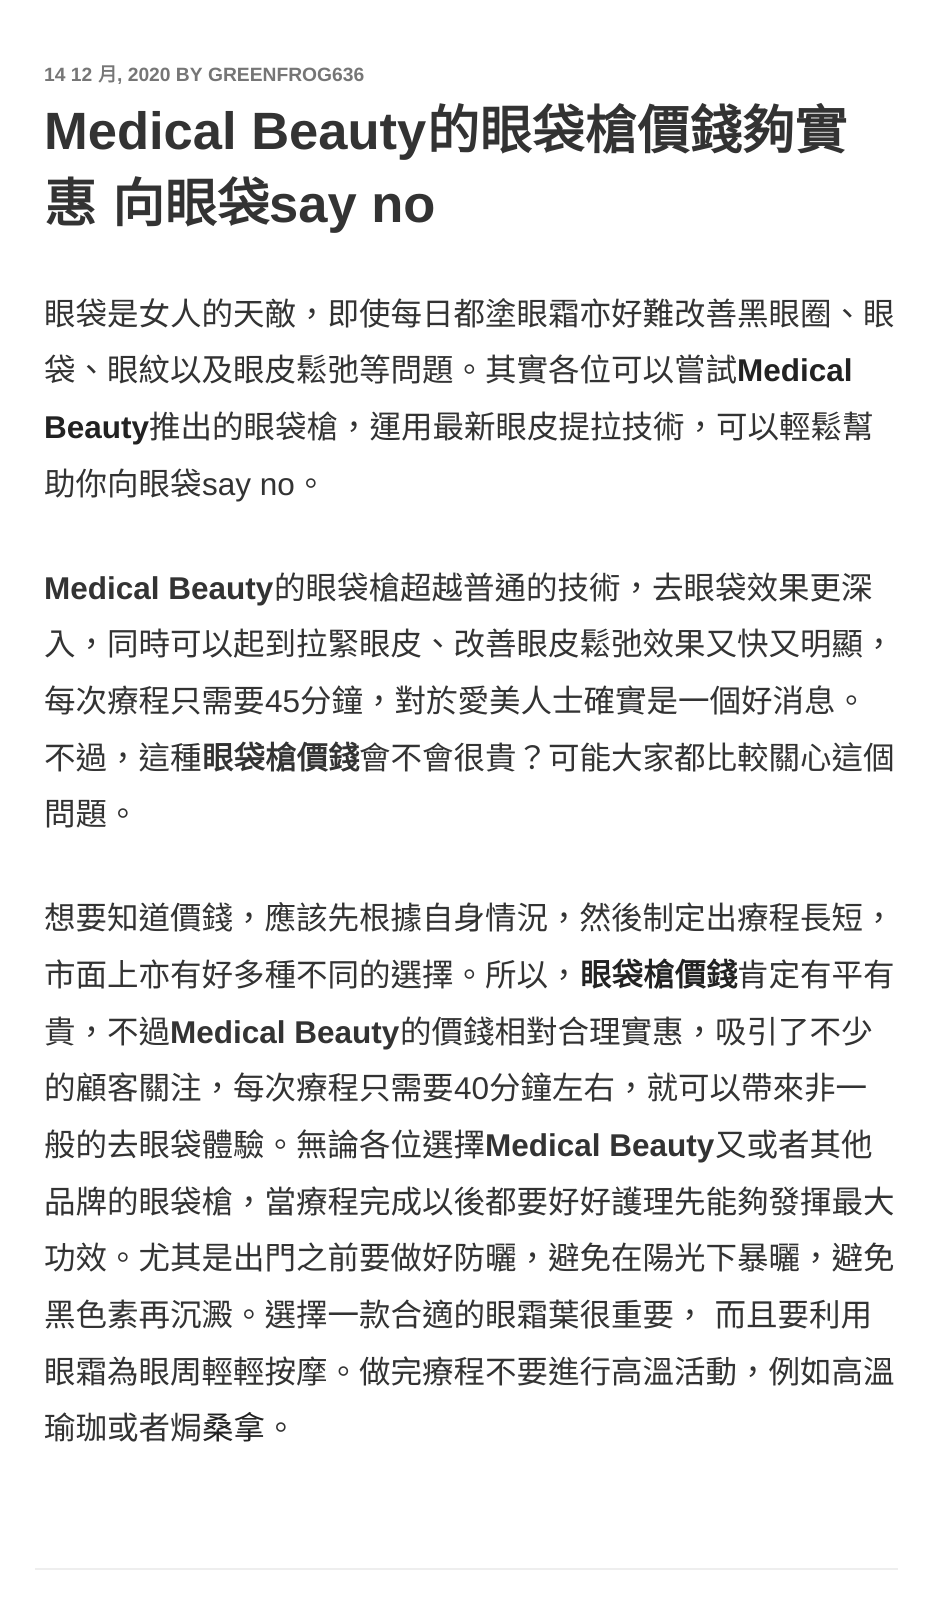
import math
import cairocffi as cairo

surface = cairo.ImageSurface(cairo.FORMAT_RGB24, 932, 1613)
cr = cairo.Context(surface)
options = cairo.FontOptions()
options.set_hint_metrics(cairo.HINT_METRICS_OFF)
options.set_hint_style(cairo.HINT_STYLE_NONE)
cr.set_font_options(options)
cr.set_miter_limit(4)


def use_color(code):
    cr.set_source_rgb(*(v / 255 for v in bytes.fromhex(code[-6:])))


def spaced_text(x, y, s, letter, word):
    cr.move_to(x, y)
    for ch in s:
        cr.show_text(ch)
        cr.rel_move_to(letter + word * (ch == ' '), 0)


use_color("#ffffff")
cr.paint()
cr.select_font_face("Liberation Sans", cairo.FONT_SLANT_NORMAL, cairo.FONT_WEIGHT_BOLD)
cr.set_font_size(19.25)
use_color("#767676")
cr.move_to(44, 81)
cr.show_text("14 12")
cr.select_font_face("Noto Sans CJK HK", cairo.FONT_SLANT_NORMAL, cairo.FONT_WEIGHT_BOLD)
cr.move_to(98, 81)
cr.show_text("月")
cr.select_font_face("Liberation Sans", cairo.FONT_SLANT_NORMAL, cairo.FONT_WEIGHT_BOLD)
cr.move_to(117, 81)
cr.show_text(", 2020 BY GREENFROG636")
cr.set_font_size(52.5)
use_color("#333333")
cr.move_to(44, 149)
cr.show_text("Medical Beauty")
cr.select_font_face("Noto Sans CJK HK", cairo.FONT_SLANT_NORMAL, cairo.FONT_WEIGHT_BOLD)
cr.move_to(427, 149)
cr.show_text("的眼袋槍價錢夠實")
cr.move_to(44, 222)
cr.show_text("惠")
cr.move_to(112, 222)
cr.show_text("向眼袋")
cr.select_font_face("Liberation Sans", cairo.FONT_SLANT_NORMAL, cairo.FONT_WEIGHT_BOLD)
cr.move_to(269, 222)
cr.show_text("say no")
cr.select_font_face("Noto Sans CJK HK")
cr.set_font_size(31.5)
cr.move_to(44, 325)
cr.show_text("眼袋是女人的天敵，即使每日都塗眼霜亦好難改善黑眼圈、眼")
cr.move_to(44, 381)
cr.show_text("袋、眼紋以及眼皮鬆弛等問題。其實各位可以嘗試")
cr.select_font_face("Liberation Sans", cairo.FONT_SLANT_NORMAL, cairo.FONT_WEIGHT_BOLD)
use_color("#222222")
cr.move_to(737, 381)
cr.show_text("Medical")
cr.move_to(44, 438)
cr.show_text("Beauty")
cr.select_font_face("Noto Sans CJK HK")
use_color("#333333")
cr.move_to(149, 438)
cr.show_text("推出的眼袋槍，運用最新眼皮提拉技術，可以輕鬆幫")
cr.move_to(44, 495)
cr.show_text("助你向眼袋")
cr.select_font_face("Liberation Sans")
cr.move_to(202, 495)
cr.show_text("say no")
cr.select_font_face("Noto Sans CJK HK")
cr.move_to(295, 495)
cr.show_text("。")
cr.select_font_face("Liberation Sans", cairo.FONT_SLANT_NORMAL, cairo.FONT_WEIGHT_BOLD)
cr.move_to(44, 599)
cr.show_text("Medical Beauty")
cr.select_font_face("Noto Sans CJK HK")
cr.move_to(274, 599)
cr.show_text("的眼袋槍超越普通的技術，去眼袋效果更深")
cr.move_to(44, 655)
cr.show_text("入，同時可以起到拉緊眼皮、改善眼皮鬆弛效果又快又明顯，")
cr.move_to(44, 712)
cr.show_text("每次療程只需要")
cr.select_font_face("Liberation Sans")
cr.move_to(265, 712)
cr.show_text("45")
cr.select_font_face("Noto Sans CJK HK")
cr.move_to(300, 712)
cr.show_text("分鐘，對於愛美人士確實是一個好消息。")
cr.move_to(44, 769)
cr.show_text("不過，這種")
cr.select_font_face("Noto Sans CJK HK", cairo.FONT_SLANT_NORMAL, cairo.FONT_WEIGHT_BOLD)
cr.move_to(202, 769)
cr.show_text("眼袋槍價錢")
cr.select_font_face("Noto Sans CJK HK")
cr.move_to(359, 769)
cr.show_text("會不會很貴？可能大家都比較關心這個")
cr.move_to(44, 825)
cr.show_text("問題。")
cr.move_to(44, 929)
cr.show_text("想要知道價錢，應該先根據自身情況，然後制定出療程長短，")
cr.move_to(44, 986)
cr.show_text("市面上亦有好多種不同的選擇。所以，")
cr.select_font_face("Noto Sans CJK HK", cairo.FONT_SLANT_NORMAL, cairo.FONT_WEIGHT_BOLD)
use_color("#222222")
cr.move_to(580, 986)
cr.show_text("眼袋槍價錢")
cr.select_font_face("Noto Sans CJK HK")
use_color("#333333")
cr.move_to(737, 986)
cr.show_text("肯定有平有")
cr.move_to(44, 1043)
cr.show_text("貴，不過")
cr.select_font_face("Liberation Sans", cairo.FONT_SLANT_NORMAL, cairo.FONT_WEIGHT_BOLD)
cr.move_to(170, 1043)
cr.show_text("Medical Beauty")
cr.select_font_face("Noto Sans CJK HK")
cr.move_to(400, 1043)
cr.show_text("的價錢相對合理實惠，吸引了不少")
cr.move_to(44, 1099)
cr.show_text("的顧客關注，每次療程只需要")
cr.select_font_face("Liberation Sans")
cr.move_to(454, 1099)
cr.show_text("40")
cr.select_font_face("Noto Sans CJK HK")
cr.move_to(489, 1099)
cr.show_text("分鐘左右，就可以帶來非一")
cr.move_to(44, 1156)
cr.show_text("般的去眼袋體驗。無論各位選擇")
cr.select_font_face("Liberation Sans", cairo.FONT_SLANT_NORMAL, cairo.FONT_WEIGHT_BOLD)
cr.move_to(485, 1156)
cr.show_text("Medical Beauty")
cr.select_font_face("Noto Sans CJK HK")
cr.move_to(715, 1156)
cr.show_text("又或者其他")
cr.move_to(44, 1213)
cr.show_text("品牌的眼袋槍，當療程完成以後都要好好護理先能夠發揮最大")
cr.move_to(44, 1269)
cr.show_text("功效。尤其是出門之前要做好防曬，避免在陽光下暴曬，避免")
spaced_text(44, 1326, "黑色素再沉澱。選擇一款合適的眼霜葉很重要， 而且要利用", 0, 2)
cr.move_to(44, 1383)
cr.show_text("眼霜為眼周輕輕按摩。做完療程不要進行高溫活動，例如高溫")
cr.move_to(44, 1439)
cr.show_text("瑜珈或者焗")
use_color("#222222")
cr.move_to(202, 1439)
cr.show_text("桑拿")
use_color("#333333")
cr.move_to(265, 1439)
cr.show_text("。")
use_color("#eeeeee")
cr.rectangle(35, 1568, 863, 2)
cr.fill()
surface.write_to_png("result.png")
